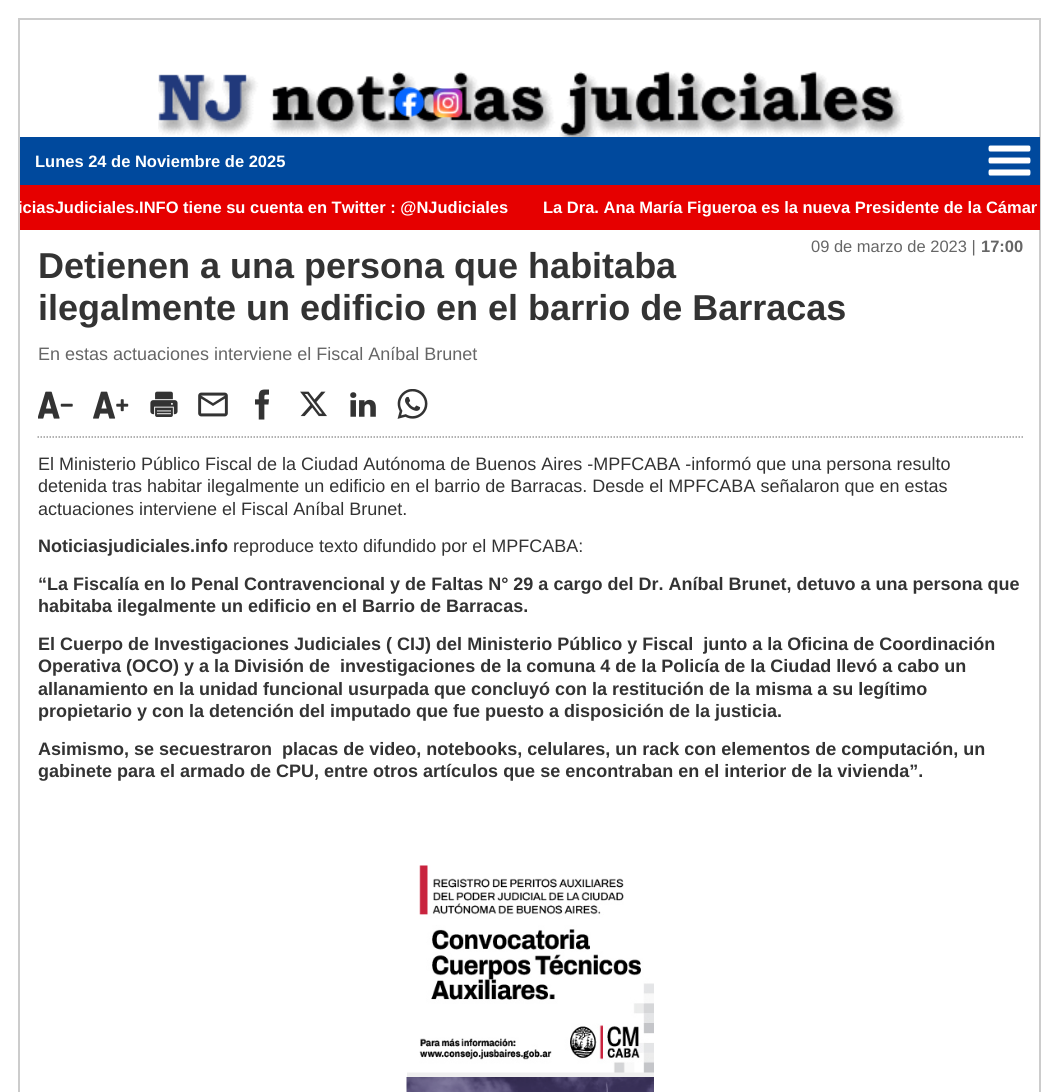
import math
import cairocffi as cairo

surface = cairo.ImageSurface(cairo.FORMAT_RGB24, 1059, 1092)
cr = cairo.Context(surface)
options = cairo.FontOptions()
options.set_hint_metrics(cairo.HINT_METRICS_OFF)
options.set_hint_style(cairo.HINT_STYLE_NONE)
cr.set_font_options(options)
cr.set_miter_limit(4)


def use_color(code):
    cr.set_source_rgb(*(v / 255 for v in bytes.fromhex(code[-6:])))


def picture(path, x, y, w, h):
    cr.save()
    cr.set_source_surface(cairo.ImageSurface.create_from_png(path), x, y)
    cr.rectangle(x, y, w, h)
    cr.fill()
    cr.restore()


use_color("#ffffff")
cr.paint()
cr.rectangle(19, 19, 1021, 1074)
use_color("#cccccc")
cr.stroke()
picture("img1.png", 158, 71, 747, 66)
picture("img2.png", 394, 87, 31, 30)
picture("img3.png", 433, 88, 31, 30)
use_color("#00499d")
cr.rectangle(20, 137, 1020, 48)
cr.fill()
cr.select_font_face("Liberation Sans", cairo.FONT_SLANT_NORMAL, cairo.FONT_WEIGHT_BOLD)
cr.set_font_size(16.5)
use_color("#ffffff")
cr.move_to(35, 167)
cr.show_text("Lunes 24 de Noviembre de 2025")
picture("img4.png", 988, 145, 43, 31)
use_color("#e60000")
cr.rectangle(20, 185, 1020, 45)
cr.fill()
cr.save()
cr.rectangle(20, 185, 1020, 45)
cr.clip()
use_color("#ffffff")
cr.move_to(18, 213)
cr.show_text("iciasJudiciales.INFO tiene su cuenta en Twitter : @NJudiciales")
cr.restore()
use_color("#ffffff")
cr.move_to(543, 213)
cr.show_text("La Dra. Ana María Figueroa es la nueva Presidente de la Cámar")
cr.select_font_face("Liberation Sans")
use_color("#666666")
cr.move_to(811, 252)
cr.show_text("09 de marzo de 2023 |")
cr.select_font_face("Liberation Sans", cairo.FONT_SLANT_NORMAL, cairo.FONT_WEIGHT_BOLD)
cr.move_to(981, 252)
cr.show_text("17:00")
cr.set_font_size(36)
use_color("#333333")
cr.move_to(38, 278)
cr.show_text("Detienen a una persona que habitaba")
cr.move_to(38, 320)
cr.show_text("ilegalmente un edificio en el barrio de Barracas")
cr.select_font_face("Liberation Sans")
cr.set_font_size(18)
use_color("#666666")
cr.move_to(38, 360)
cr.show_text("En estas actuaciones interviene el Fiscal Aníbal Brunet")
cr.new_path()
cr.move_to(37.5, 437)
cr.line_to(1023, 437)
use_color("#999999")
cr.set_line_width(1.5)
cr.set_dash([1.5, 1.5])
cr.stroke()
picture("img5.png", 38, 391, 35, 28)
picture("img6.png", 93, 391, 36, 28)
picture("img7.png", 150, 391, 28, 26)
picture("img8.png", 198, 392, 30, 25)
picture("img9.png", 255, 389, 14, 31)
picture("img10.png", 300, 391, 27, 26)
picture("img11.png", 350, 392, 26, 25)
picture("img12.png", 397, 389, 31, 30)
use_color("#333333")
cr.move_to(38, 470)
cr.show_text("El Ministerio Público Fiscal de la Ciudad Autónoma de Buenos Aires -MPFCABA -informó que una persona resulto")
cr.move_to(38, 492)
cr.show_text("detenida tras habitar ilegalmente un edificio en el barrio de Barracas. Desde el MPFCABA señalaron que en estas")
cr.move_to(38, 515)
cr.show_text("actuaciones interviene el Fiscal Aníbal Brunet.")
cr.select_font_face("Liberation Sans", cairo.FONT_SLANT_NORMAL, cairo.FONT_WEIGHT_BOLD)
cr.move_to(38, 552)
cr.show_text("Noticiasjudiciales.info")
cr.select_font_face("Liberation Sans")
cr.move_to(233, 552)
cr.show_text("reproduce texto difundido por el MPFCABA:")
cr.select_font_face("Liberation Sans", cairo.FONT_SLANT_NORMAL, cairo.FONT_WEIGHT_BOLD)
cr.move_to(38, 590)
cr.show_text("“La Fiscalía en lo Penal Contravencional y de Faltas N° 29 a cargo del Dr. Aníbal Brunet, detuvo a una persona que")
cr.move_to(38, 612)
cr.show_text("habitaba ilegalmente un edificio en el Barrio de Barracas.")
cr.move_to(38, 650)
cr.show_text("El Cuerpo de Investigaciones Judiciales ( CIJ) del Ministerio Público y Fiscal  junto a la Oficina de Coordinación")
cr.move_to(38, 672)
cr.show_text("Operativa (OCO) y a la División de  investigaciones de la comuna 4 de la Policía de la Ciudad llevó a cabo un")
cr.move_to(38, 695)
cr.show_text("allanamiento en la unidad funcional usurpada que concluyó con la restitución de la misma a su legítimo")
cr.move_to(38, 717)
cr.show_text("propietario y con la detención del imputado que fue puesto a disposición de la justicia.")
cr.move_to(38, 755)
cr.show_text("Asimismo, se secuestraron  placas de video, notebooks, celulares, un rack con elementos de computación, un")
cr.move_to(38, 777)
cr.show_text("gabinete para el armado de CPU, entre otros artículos que se encontraban en el interior de la vivienda”.")
use_color("#efefef")
cr.rectangle(407, 1072, 247, 5)
cr.fill()
picture("img13.png", 407, 865, 247, 208)
picture("img14.png", 406, 1077, 248, 15)
surface.write_to_png("result.png")
